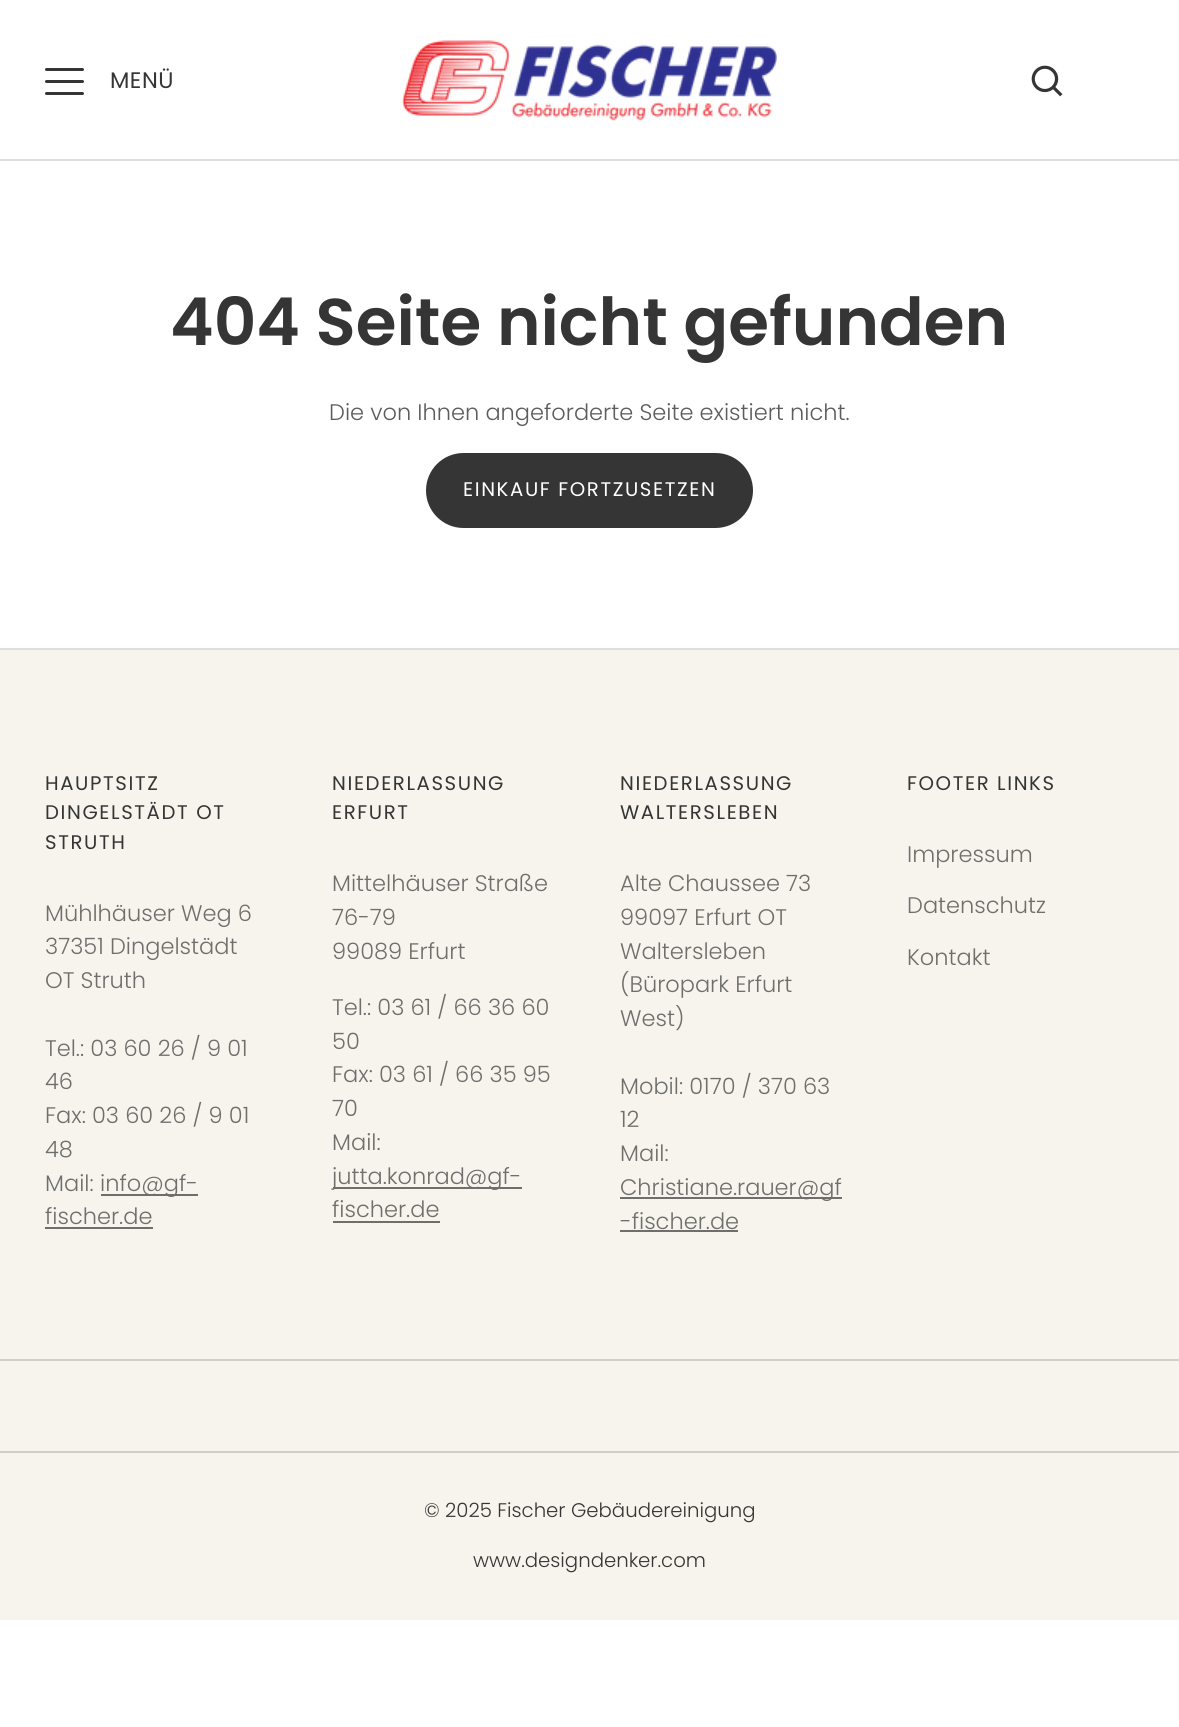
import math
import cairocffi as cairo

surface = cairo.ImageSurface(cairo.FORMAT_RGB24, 1179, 1727)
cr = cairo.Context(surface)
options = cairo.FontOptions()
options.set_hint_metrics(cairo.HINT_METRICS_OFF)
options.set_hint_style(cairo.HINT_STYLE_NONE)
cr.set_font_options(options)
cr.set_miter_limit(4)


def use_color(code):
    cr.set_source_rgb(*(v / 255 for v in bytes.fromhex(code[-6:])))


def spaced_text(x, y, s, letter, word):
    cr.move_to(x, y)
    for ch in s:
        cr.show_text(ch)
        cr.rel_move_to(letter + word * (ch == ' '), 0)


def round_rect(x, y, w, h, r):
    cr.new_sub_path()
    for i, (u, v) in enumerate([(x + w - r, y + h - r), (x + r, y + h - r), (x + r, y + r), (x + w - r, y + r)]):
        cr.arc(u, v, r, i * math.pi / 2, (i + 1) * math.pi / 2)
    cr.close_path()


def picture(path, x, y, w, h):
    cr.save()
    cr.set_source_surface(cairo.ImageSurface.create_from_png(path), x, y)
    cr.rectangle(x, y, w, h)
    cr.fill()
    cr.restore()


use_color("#ffffff")
cr.paint()
use_color("#343534")
round_rect(45, 68, 39, 3, 1.5)
cr.fill()
round_rect(45, 80, 39, 3, 1.5)
cr.fill()
round_rect(45, 92, 39, 3, 1.5)
cr.fill()
cr.select_font_face("Poppins")
cr.set_font_size(22.5)
spaced_text(110, 88, "MENÜ", 0.5, 0)
picture("img1.png", 402, 40, 375, 81)
picture("img2.png", 1031, 65, 32, 32)
use_color("#dedede")
cr.rectangle(0, 159, 1179, 2)
cr.fill()
cr.select_font_face("Poppins SemiBold")
cr.set_font_size(66)
use_color("#343534")
cr.move_to(170, 345)
cr.show_text("404 Seite nicht gefunden")
cr.select_font_face("Poppins Light")
cr.set_font_size(22.5)
use_color("#5c5c5c")
cr.move_to(329, 420)
cr.show_text("Die von Ihnen angeforderte Seite existiert nicht.")
use_color("#343534")
round_rect(427, 454, 325, 73, 36.5)
cr.fill_preserve()
cr.stroke()
cr.select_font_face("Poppins")
cr.set_font_size(19.7)
use_color("#ffffff")
spaced_text(463, 496, "EINKAUF FORTZUSETZEN", 1.6, 0)
use_color("#f6f4ed")
cr.rectangle(0, 650, 1179, 970)
cr.fill()
use_color("#dedede")
cr.rectangle(0, 648, 1179, 2)
cr.fill()
use_color("#343534")
spaced_text(45, 790, "HAUPTSITZ", 1.6, 0)
spaced_text(45, 819, "DINGELSTÄDT OT", 1.6, 0)
spaced_text(45, 849, "STRUTH", 1.6, 0)
cr.select_font_face("Poppins Light")
cr.set_font_size(22.5)
use_color("#6e6e6c")
cr.move_to(45, 921)
cr.show_text("Mühlhäuser Weg 6")
cr.move_to(45, 954)
cr.show_text("37351 Dingelstädt")
cr.move_to(45, 988)
cr.show_text("OT Struth")
cr.move_to(45, 1056)
cr.show_text("Tel.: 03 60 26 / 9 01")
cr.move_to(45, 1089)
cr.show_text("46")
cr.move_to(45, 1123)
cr.show_text("Fax: 03 60 26 / 9 01")
cr.move_to(45, 1157)
cr.show_text("48")
cr.move_to(45, 1191)
cr.show_text("Mail:")
cr.rectangle(101, 1194, 97, 2)
cr.fill()
cr.move_to(100, 1191)
cr.show_text("info@gf-")
cr.move_to(45, 1224)
cr.show_text("fischer.de")
cr.rectangle(45, 1227, 108, 2)
cr.fill()
cr.select_font_face("Poppins")
cr.set_font_size(19.7)
use_color("#343534")
spaced_text(332, 790, "NIEDERLASSUNG", 1.6, 0)
spaced_text(332, 819, "ERFURT", 1.6, 0)
cr.select_font_face("Poppins Light")
cr.set_font_size(22.5)
use_color("#6e6e6c")
cr.move_to(332, 891)
cr.show_text("Mittelhäuser Straße")
cr.move_to(332, 925)
cr.show_text("76-79")
cr.move_to(332, 959)
cr.show_text("99089 Erfurt")
cr.move_to(332, 1015)
cr.show_text("Tel.: 03 61 / 66 36 60")
cr.move_to(332, 1049)
cr.show_text("50")
cr.move_to(332, 1082)
cr.show_text("Fax: 03 61 / 66 35 95")
cr.move_to(332, 1116)
cr.show_text("70")
cr.move_to(332, 1150)
cr.show_text("Mail:")
cr.rectangle(333, 1187, 189, 2)
cr.fill()
cr.move_to(332, 1184)
cr.show_text("jutta.konrad@gf-")
cr.move_to(332, 1217)
cr.show_text("fischer.de")
cr.rectangle(333, 1221, 107, 2)
cr.fill()
cr.select_font_face("Poppins")
cr.set_font_size(19.7)
use_color("#343534")
spaced_text(620, 790, "NIEDERLASSUNG", 1.6, 0)
spaced_text(620, 819, "WALTERSLEBEN", 1.6, 0)
cr.select_font_face("Poppins Light")
cr.set_font_size(22.5)
use_color("#6e6e6c")
cr.move_to(620, 891)
cr.show_text("Alte Chaussee 73")
cr.move_to(620, 925)
cr.show_text("99097 Erfurt OT")
cr.move_to(620, 959)
cr.show_text("Waltersleben")
cr.move_to(620, 992)
cr.show_text("(Büropark Erfurt")
cr.move_to(620, 1026)
cr.show_text("West)")
cr.move_to(620, 1094)
cr.show_text("Mobil: 0170 / 370 63")
cr.move_to(620, 1127)
cr.show_text("12")
cr.move_to(620, 1161)
cr.show_text("Mail:")
cr.rectangle(620, 1197, 222, 2)
cr.fill()
cr.move_to(620, 1195)
cr.show_text("Christiane.rauer@gf")
cr.move_to(620, 1229)
cr.show_text("-fischer.de")
cr.rectangle(620, 1230, 118, 2)
cr.fill()
cr.select_font_face("Poppins")
cr.set_font_size(19.7)
use_color("#343534")
spaced_text(907, 790, "FOOTER LINKS", 1.6, 0)
cr.select_font_face("Poppins Light")
cr.set_font_size(22.5)
use_color("#6e6e6c")
cr.move_to(907, 862)
cr.show_text("Impressum")
cr.move_to(907, 913)
cr.show_text("Datenschutz")
cr.move_to(907, 965)
cr.show_text("Kontakt")
use_color("#cfcec8")
cr.rectangle(0, 1359, 1179, 2)
cr.fill()
cr.rectangle(0, 1451, 1179, 2)
cr.fill()
cr.set_font_size(19.7)
use_color("#343534")
cr.move_to(424, 1517)
cr.show_text("© 2025 Fischer Gebäudereinigung")
cr.move_to(473, 1567)
cr.show_text("www.designdenker.com")
surface.write_to_png("result.png")
